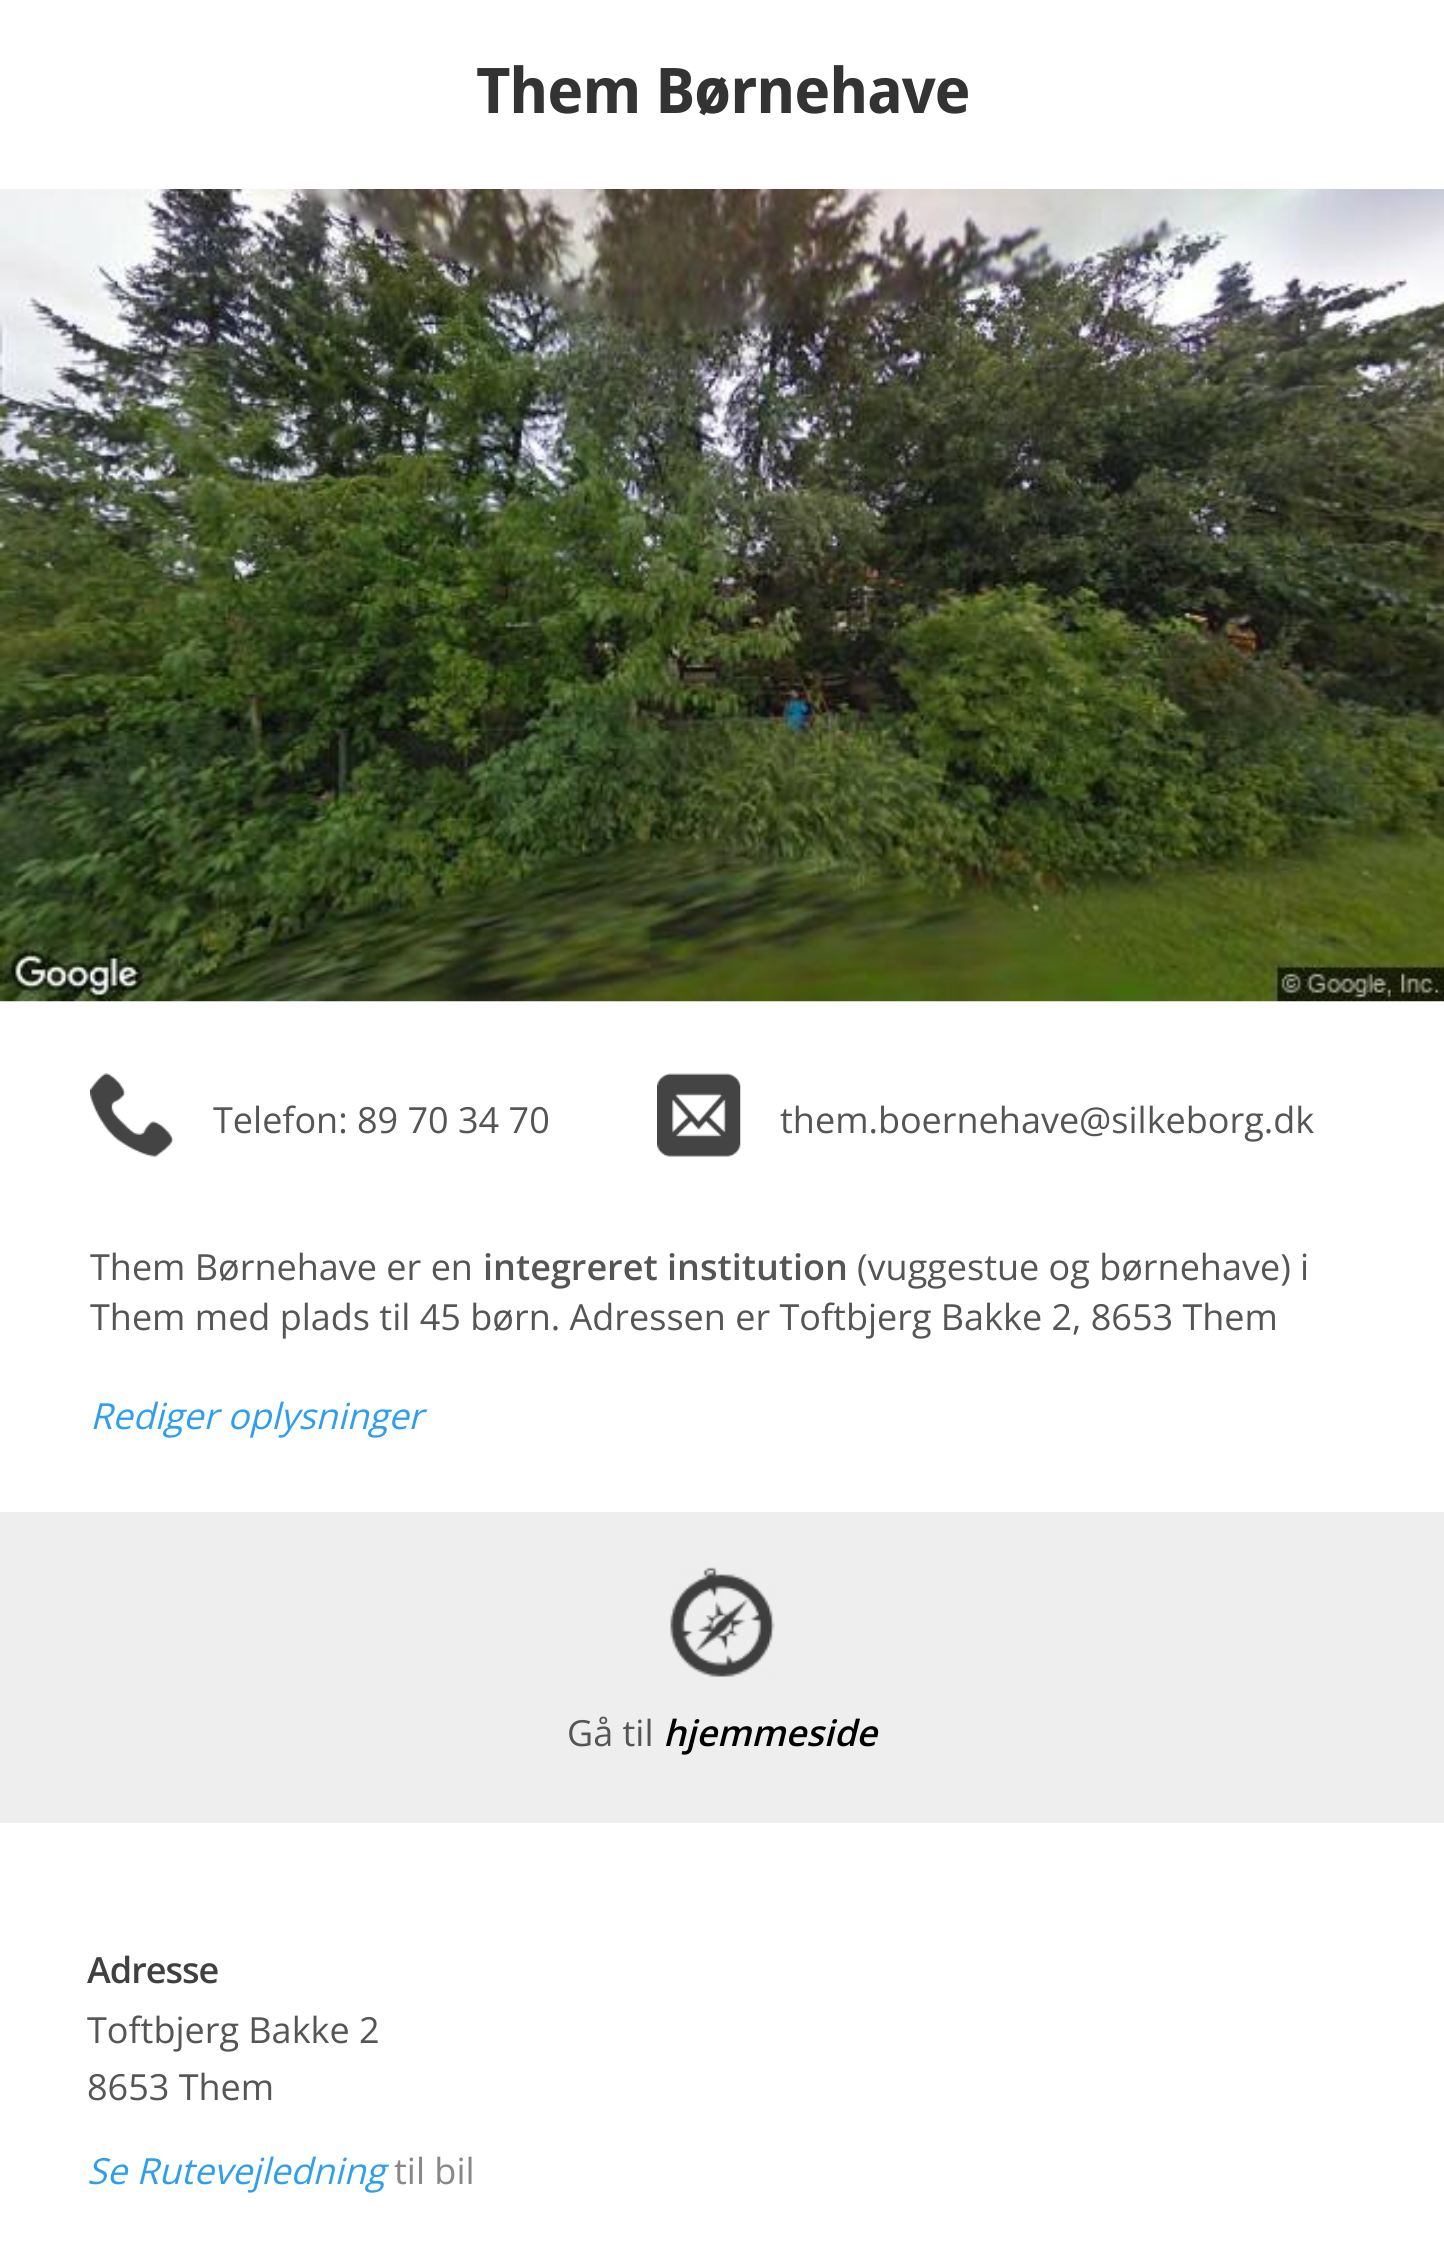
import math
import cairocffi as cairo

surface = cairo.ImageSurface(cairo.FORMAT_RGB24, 1444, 2254)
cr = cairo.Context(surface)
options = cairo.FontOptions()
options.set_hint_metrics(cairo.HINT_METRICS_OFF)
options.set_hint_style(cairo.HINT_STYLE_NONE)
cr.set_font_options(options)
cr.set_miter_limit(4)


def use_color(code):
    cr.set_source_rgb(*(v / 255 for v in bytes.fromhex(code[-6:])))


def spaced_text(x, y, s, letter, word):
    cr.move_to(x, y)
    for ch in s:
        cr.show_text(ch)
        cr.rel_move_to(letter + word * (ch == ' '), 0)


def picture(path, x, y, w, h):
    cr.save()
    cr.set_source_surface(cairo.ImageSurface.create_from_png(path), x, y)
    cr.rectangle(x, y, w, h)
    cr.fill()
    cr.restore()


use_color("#ffffff")
cr.paint()
cr.select_font_face("Droid Sans", cairo.FONT_SLANT_NORMAL, cairo.FONT_WEIGHT_BOLD)
cr.set_font_size(63)
use_color("#333333")
spaced_text(476, 113, "Them Børnehave", -1.5, 0)
picture("img1.png", 0, 189, 1444, 813)
picture("img2.png", 90, 1073, 84, 84)
cr.select_font_face("Open Sans")
cr.set_font_size(36)
use_color("#555555")
cr.move_to(213, 1133)
cr.show_text("Telefon: 89 70 34 70")
picture("img3.png", 657, 1073, 84, 84)
cr.move_to(780, 1133)
cr.show_text("them.boernehave@silkeborg.dk")
cr.move_to(90, 1280)
cr.show_text("Them Børnehave er en")
cr.select_font_face("Open Sans SemiBold")
cr.move_to(483, 1280)
cr.show_text("integreret institution")
cr.select_font_face("Open Sans")
cr.move_to(857, 1280)
cr.show_text("(vuggestue og børnehave) i")
cr.move_to(90, 1330)
cr.show_text("Them med plads til 45 børn. Adressen er Toftbjerg Bakke 2, 8653 Them")
cr.select_font_face("Open Sans", cairo.FONT_SLANT_ITALIC)
use_color("#2e9eed")
cr.move_to(90, 1429)
cr.show_text("Rediger oplysninger")
use_color("#eeeeee")
cr.rectangle(0, 1512, 1444, 311)
cr.fill()
picture("img4.png", 670, 1567, 105, 110)
cr.select_font_face("Open Sans")
use_color("#555555")
cr.move_to(567, 1746)
cr.show_text("Gå til")
cr.select_font_face("Open Sans SemiBold", cairo.FONT_SLANT_ITALIC)
use_color("#000000")
cr.move_to(663, 1746)
cr.show_text("hjemmeside")
cr.select_font_face("Open Sans SemiBold")
use_color("#404040")
spaced_text(87, 1983, "Adresse", -1, 0)
cr.select_font_face("Open Sans")
use_color("#555555")
cr.move_to(87, 2043)
cr.show_text("Toftbjerg Bakke 2")
cr.move_to(87, 2100)
cr.show_text("8653 Them")
cr.select_font_face("Open Sans", cairo.FONT_SLANT_ITALIC)
use_color("#2e9eed")
cr.move_to(87, 2184)
cr.show_text("Se Rutevejledning")
cr.select_font_face("Open Sans")
use_color("#888888")
cr.move_to(394, 2184)
cr.show_text("til bil")
surface.write_to_png("result.png")
